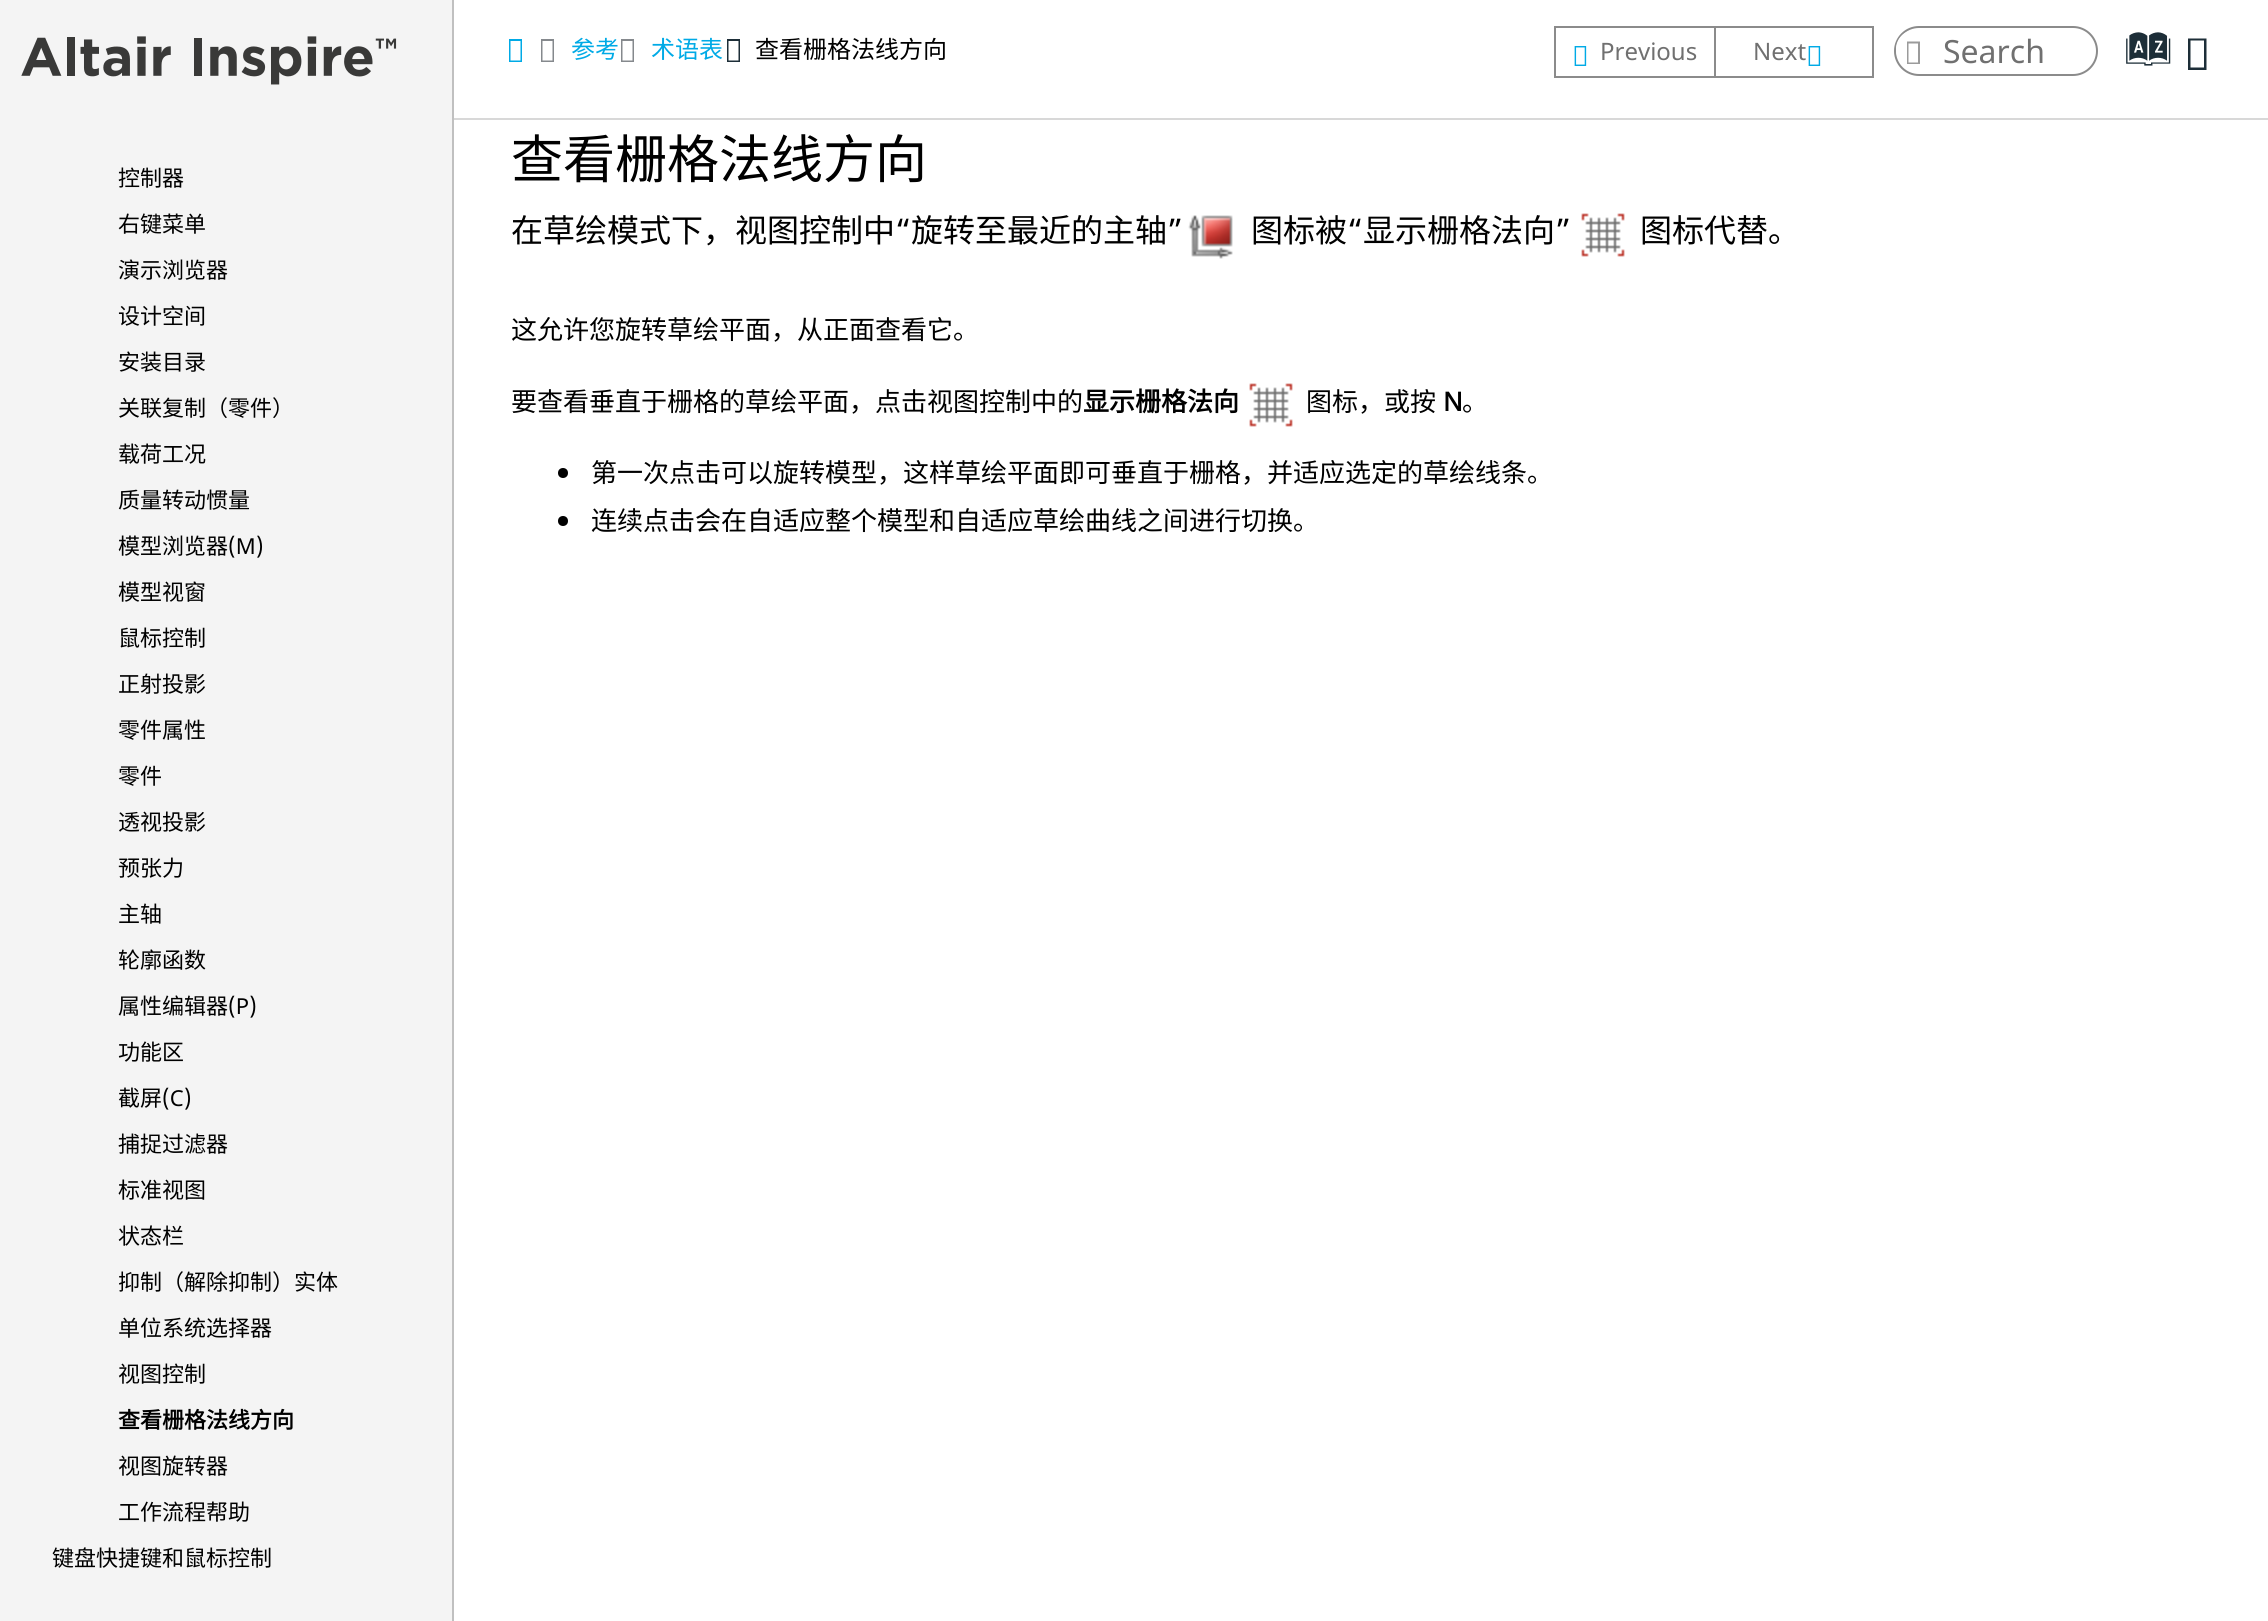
import math
import cairocffi as cairo

surface = cairo.ImageSurface(cairo.FORMAT_RGB24, 2268, 1621)
cr = cairo.Context(surface)
options = cairo.FontOptions()
options.set_hint_metrics(cairo.HINT_METRICS_OFF)
options.set_hint_style(cairo.HINT_STYLE_NONE)
cr.set_font_options(options)
cr.set_miter_limit(4)


def use_color(code):
    cr.set_source_rgb(*(v / 255 for v in bytes.fromhex(code[-6:])))


def round_rect(x, y, w, h, r):
    cr.new_sub_path()
    for i, (u, v) in enumerate([(x + w - r, y + h - r), (x + r, y + h - r), (x + r, y + r), (x + w - r, y + r)]):
        cr.arc(u, v, r, i * math.pi / 2, (i + 1) * math.pi / 2)
    cr.close_path()


def picture(path, x, y, w, h):
    cr.save()
    cr.set_source_surface(cairo.ImageSurface.create_from_png(path), x, y)
    cr.rectangle(x, y, w, h)
    cr.fill()
    cr.restore()


use_color("#ffffff")
cr.paint()
use_color("#f4f4f4")
cr.rectangle(0, 0, 452, 1621)
cr.fill()
use_color("#c0c0c0")
cr.rectangle(452, 0, 2, 1621)
cr.fill()
picture("img1.png", 21, 36, 376, 49)
cr.select_font_face("Noto Sans CJK SC")
cr.set_font_size(22)
use_color("#000000")
cr.move_to(118, 186)
cr.show_text("控制器")
cr.move_to(118, 232)
cr.show_text("右键菜单")
cr.move_to(118, 278)
cr.show_text("演示浏览器")
cr.move_to(118, 324)
cr.show_text("设计空间")
cr.move_to(118, 370)
cr.show_text("安装目录")
cr.move_to(118, 416)
cr.show_text("关联复制（零件）")
cr.move_to(118, 462)
cr.show_text("载荷工况")
cr.move_to(118, 508)
cr.show_text("质量转动惯量")
cr.move_to(118, 554)
cr.show_text("模型浏览器")
cr.select_font_face("Noto Sans")
cr.move_to(228, 554)
cr.show_text("(M)")
cr.select_font_face("Noto Sans CJK SC")
cr.move_to(118, 600)
cr.show_text("模型视窗")
cr.move_to(118, 646)
cr.show_text("鼠标控制")
cr.move_to(118, 692)
cr.show_text("正射投影")
cr.move_to(118, 738)
cr.show_text("零件属性")
cr.move_to(118, 784)
cr.show_text("零件")
cr.move_to(118, 830)
cr.show_text("透视投影")
cr.move_to(118, 876)
cr.show_text("预张力")
cr.move_to(118, 922)
cr.show_text("主轴")
cr.move_to(118, 968)
cr.show_text("轮廓函数")
cr.move_to(118, 1014)
cr.show_text("属性编辑器")
cr.select_font_face("Noto Sans")
cr.move_to(228, 1014)
cr.show_text("(P)")
cr.select_font_face("Noto Sans CJK SC")
cr.move_to(118, 1060)
cr.show_text("功能区")
cr.move_to(118, 1106)
cr.show_text("截屏")
cr.select_font_face("Noto Sans")
cr.move_to(162, 1106)
cr.show_text("(C)")
cr.select_font_face("Noto Sans CJK SC")
cr.move_to(118, 1152)
cr.show_text("捕捉过滤器")
cr.move_to(118, 1198)
cr.show_text("标准视图")
cr.move_to(118, 1244)
cr.show_text("状态栏")
cr.move_to(118, 1290)
cr.show_text("抑制（解除抑制）实体")
cr.move_to(118, 1336)
cr.show_text("单位系统选择器")
cr.move_to(118, 1382)
cr.show_text("视图控制")
cr.select_font_face("Noto Sans CJK SC", cairo.FONT_SLANT_NORMAL, cairo.FONT_WEIGHT_BOLD)
cr.move_to(118, 1428)
cr.show_text("查看栅格法线方向")
cr.select_font_face("Noto Sans CJK SC")
cr.move_to(118, 1474)
cr.show_text("视图旋转器")
cr.move_to(118, 1520)
cr.show_text("工作流程帮助")
cr.move_to(52, 1566)
cr.show_text("键盘快捷键和鼠标控制")
use_color("#d8d8d8")
cr.rectangle(454, 118, 1814, 2)
cr.fill()
use_color("#00aae6")
cr.new_path()
cr.move_to(509, 62)
cr.line_to(509, 39)
cr.line_to(522, 39)
cr.line_to(522, 62)
cr.close_path()
cr.move_to(510.5, 60.5)
cr.line_to(520.5, 60.5)
cr.line_to(520.5, 41)
cr.line_to(510.5, 41)
cr.close_path()
cr.fill()
use_color("#85898d")
cr.new_path()
cr.move_to(541, 62)
cr.line_to(541, 39)
cr.line_to(554, 39)
cr.line_to(554, 62)
cr.close_path()
cr.move_to(542.5, 60.5)
cr.line_to(552.5, 60.5)
cr.line_to(552.5, 41)
cr.line_to(542.5, 41)
cr.close_path()
cr.fill()
cr.set_font_size(24)
use_color("#00aae6")
cr.move_to(571, 58)
cr.show_text("参考")
use_color("#85898d")
cr.new_path()
cr.move_to(621, 62)
cr.line_to(621, 39)
cr.line_to(634, 39)
cr.line_to(634, 62)
cr.close_path()
cr.move_to(622.5, 60.5)
cr.line_to(632.5, 60.5)
cr.line_to(632.5, 41)
cr.line_to(622.5, 41)
cr.close_path()
cr.fill()
use_color("#00aae6")
cr.move_to(651, 58)
cr.show_text("术语表")
use_color("#1d2e38")
cr.new_path()
cr.move_to(727, 62)
cr.line_to(727, 39)
cr.line_to(740, 39)
cr.line_to(740, 62)
cr.close_path()
cr.move_to(728.5, 60.5)
cr.line_to(738.5, 60.5)
cr.line_to(738.5, 41)
cr.line_to(728.5, 41)
cr.close_path()
cr.fill()
use_color("#000000")
cr.move_to(755, 58)
cr.show_text("查看栅格法线方向")
use_color("#8b8b8b")
cr.rectangle(1554, 26, 160, 2)
cr.fill()
cr.rectangle(1554, 76, 160, 2)
cr.fill()
cr.rectangle(1554, 26, 2, 52)
cr.fill()
picture("img2.png", 1574, 46, 13, 20)
cr.select_font_face("Noto Sans")
use_color("#707070")
cr.move_to(1600, 60)
cr.show_text("Previous")
cr.rectangle(1715, 27, 158, 50)
use_color("#8b8b8b")
cr.stroke()
use_color("#707070")
cr.move_to(1753, 60)
cr.show_text("Next")
picture("img2.png", 1808, 46, 13, 20)
round_rect(1895, 27, 202, 48, 24)
use_color("#8b8b8b")
cr.stroke()
use_color("#ffffff")
round_rect(1896, 30, 40, 38, 19)
cr.fill()
use_color("#9b9b9b")
cr.new_path()
cr.move_to(1907, 64)
cr.line_to(1907, 41.5)
cr.line_to(1920, 41.5)
cr.line_to(1920, 64)
cr.close_path()
cr.move_to(1908.5, 62.5)
cr.line_to(1918, 62.5)
cr.line_to(1918, 43.5)
cr.line_to(1908.5, 43.5)
cr.close_path()
cr.fill()
cr.set_font_size(32)
use_color("#707070")
cr.move_to(1943, 63)
cr.show_text("Search")
cr.select_font_face("Oxygen")
cr.set_font_size(47)
use_color("#1d2e38")
cr.move_to(2131, 71)
cr.show_text("a")
cr.new_path()
cr.move_to(2188, 70)
cr.line_to(2188, 38.5)
cr.line_to(2206.5, 38.5)
cr.line_to(2206.5, 70)
cr.close_path()
cr.move_to(2190.5, 67.5)
cr.line_to(2204, 67.5)
cr.line_to(2204, 40.5)
cr.line_to(2190.5, 40.5)
cr.close_path()
cr.fill()
cr.select_font_face("Noto Sans CJK SC")
cr.set_font_size(52)
use_color("#000000")
cr.move_to(511, 178)
cr.show_text("查看栅格法线方向")
cr.set_font_size(32)
cr.move_to(511, 242)
cr.show_text("在草绘模式下，视图控制中")
cr.select_font_face("Noto Sans")
cr.move_to(895, 242)
cr.show_text("“")
cr.select_font_face("Noto Sans CJK SC")
cr.move_to(911, 242)
cr.show_text("旋转至最近的主轴")
cr.select_font_face("Noto Sans")
cr.move_to(1167, 242)
cr.show_text("”")
picture("img3.png", 1188, 215, 45, 44)
cr.select_font_face("Noto Sans CJK SC")
cr.move_to(1251, 242)
cr.show_text("图标被")
cr.select_font_face("Noto Sans")
cr.move_to(1347, 242)
cr.show_text("“")
cr.select_font_face("Noto Sans CJK SC")
cr.move_to(1363, 242)
cr.show_text("显示栅格法向")
cr.select_font_face("Noto Sans")
cr.move_to(1555, 242)
cr.show_text("”")
picture("img4.png", 1581, 213, 44, 44)
cr.select_font_face("Noto Sans CJK SC")
cr.move_to(1640, 242)
cr.show_text("图标代替。")
cr.set_font_size(26)
cr.move_to(511, 339)
cr.show_text("这允许您旋转草绘平面，从正面查看它。")
cr.move_to(511, 411)
cr.show_text("要查看垂直于栅格的草绘平面，点击视图控制中的")
cr.select_font_face("Noto Sans CJK SC", cairo.FONT_SLANT_NORMAL, cairo.FONT_WEIGHT_BOLD)
cr.move_to(1083, 411)
cr.show_text("显示栅格法向")
picture("img4.png", 1249, 383, 44, 44)
cr.select_font_face("Noto Sans CJK SC")
cr.move_to(1306, 411)
cr.show_text("图标，或按")
cr.select_font_face("Noto Sans", cairo.FONT_SLANT_NORMAL, cairo.FONT_WEIGHT_BOLD)
cr.move_to(1443, 411)
cr.show_text("N")
cr.select_font_face("Noto Sans CJK SC")
cr.move_to(1462, 411)
cr.show_text("。")
cr.new_path()
cr.arc(563, 473, 5, 0, 2 * math.pi)
cr.fill()
cr.move_to(591, 482)
cr.show_text("第一次点击可以旋转模型，这样草绘平面即可垂直于栅格，并适应选定的草绘线条。")
cr.new_path()
cr.arc(563, 521, 5, 0, 2 * math.pi)
cr.fill()
cr.move_to(591, 530)
cr.show_text("连续点击会在自适应整个模型和自适应草绘曲线之间进行切换。")
surface.write_to_png("result.png")
